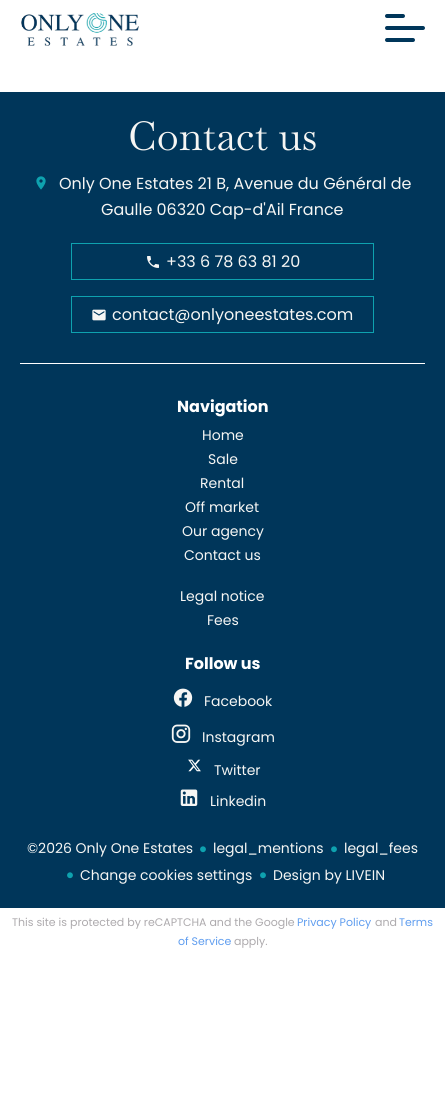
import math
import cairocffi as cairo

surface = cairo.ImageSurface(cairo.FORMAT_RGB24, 445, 1108)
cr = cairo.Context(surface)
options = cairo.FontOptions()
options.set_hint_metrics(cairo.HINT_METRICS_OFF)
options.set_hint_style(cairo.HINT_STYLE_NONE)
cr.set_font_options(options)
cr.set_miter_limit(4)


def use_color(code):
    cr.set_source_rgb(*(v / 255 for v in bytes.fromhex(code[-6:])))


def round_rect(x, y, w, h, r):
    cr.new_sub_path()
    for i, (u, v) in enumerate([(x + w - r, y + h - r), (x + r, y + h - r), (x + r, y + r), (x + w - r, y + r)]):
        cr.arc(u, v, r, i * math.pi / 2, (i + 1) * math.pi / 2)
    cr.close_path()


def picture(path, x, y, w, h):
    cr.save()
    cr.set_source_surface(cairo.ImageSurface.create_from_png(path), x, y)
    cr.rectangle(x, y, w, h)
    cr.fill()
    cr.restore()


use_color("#ffffff")
cr.paint()
picture("img1.png", 21, 13, 118, 33)
use_color("#00365a")
round_rect(385, 14, 20, 4, 2)
cr.fill()
round_rect(385, 26, 40, 4, 2)
cr.fill()
round_rect(385, 38, 30, 4, 2)
cr.fill()
cr.rectangle(0, 92, 445, 816)
cr.fill()
cr.select_font_face("Baskervville")
cr.set_font_size(40)
use_color("#f6f6f4")
cr.move_to(128, 150)
cr.show_text("Contact us")
picture("img2.png", 36, 176, 10, 14)
cr.select_font_face("Poppins")
cr.set_font_size(16)
cr.move_to(59, 189)
cr.show_text("Only One Estates 21 B, Avenue du Général de")
cr.move_to(101, 215)
cr.show_text("Gaulle 06320 Cap-d'Ail France")
cr.rectangle(71.5, 243.5, 302, 36)
use_color("#0ea2af")
cr.set_line_width(1)
cr.stroke()
picture("img3.png", 147, 256, 12, 12)
use_color("#f6f6f4")
cr.move_to(166, 267)
cr.show_text("+33 6 78 63 81 20")
cr.rectangle(71.5, 296.5, 302, 36)
use_color("#0ea2af")
cr.stroke()
picture("img4.png", 92, 309, 14, 12)
use_color("#f6f6f4")
cr.move_to(112, 320)
cr.show_text("contact@onlyoneestates.com")
use_color("#ffffff")
cr.rectangle(20, 363, 405, 1)
cr.fill()
cr.select_font_face("Poppins", cairo.FONT_SLANT_NORMAL, cairo.FONT_WEIGHT_BOLD)
cr.move_to(177, 412)
cr.show_text("Navigation")
cr.select_font_face("Poppins")
cr.set_font_size(14)
use_color("#f6f6f4")
cr.move_to(202, 440)
cr.show_text("Home")
cr.move_to(208, 464)
cr.show_text("Sale")
cr.move_to(200, 488)
cr.show_text("Rental")
cr.move_to(185, 512)
cr.show_text("Off market")
cr.move_to(182, 536)
cr.show_text("Our agency")
cr.move_to(184, 560)
cr.show_text("Contact us")
cr.move_to(180, 601)
cr.show_text("Legal notice")
cr.move_to(207, 625)
cr.show_text("Fees")
cr.select_font_face("Poppins", cairo.FONT_SLANT_NORMAL, cairo.FONT_WEIGHT_BOLD)
cr.set_font_size(16)
use_color("#ffffff")
cr.move_to(185, 669)
cr.show_text("Follow us")
picture("img5.png", 173, 688, 20, 19)
cr.select_font_face("Poppins")
cr.set_font_size(14)
use_color("#f6f6f4")
cr.move_to(204, 706)
cr.show_text("Facebook")
picture("img6.png", 171, 724, 20, 19)
cr.move_to(202, 742)
cr.show_text("Instagram")
picture("img7.png", 188, 759, 13, 13)
cr.move_to(214, 775)
cr.show_text("Twitter")
picture("img8.png", 180, 789, 18, 17)
cr.move_to(210, 806)
cr.show_text("Linkedin")
cr.move_to(27, 853)
cr.show_text("©2026 Only One Estates")
picture("img9.png", 200, 846, 6, 7)
cr.move_to(213, 853)
cr.show_text("legal_mentions")
picture("img9.png", 331, 846, 6, 7)
cr.move_to(344, 853)
cr.show_text("legal_fees")
picture("img9.png", 67, 872, 6, 7)
cr.move_to(80, 880)
cr.show_text("Change cookies settings")
picture("img9.png", 260, 872, 6, 7)
cr.move_to(273, 880)
cr.show_text("Design by LIVEIN")
cr.set_font_size(11)
use_color("#adaaad")
cr.move_to(12, 926)
cr.show_text("This site is protected by reCAPTCHA and the Google")
use_color("#5f9def")
cr.move_to(297, 926)
cr.show_text("Privacy Policy")
use_color("#adaaad")
cr.move_to(375, 926)
cr.show_text("and")
use_color("#5f9def")
cr.move_to(399, 926)
cr.show_text("Terms")
cr.move_to(178, 945)
cr.show_text("of Service")
use_color("#adaaad")
cr.move_to(234, 945)
cr.show_text("apply.")
surface.write_to_png("result.png")
